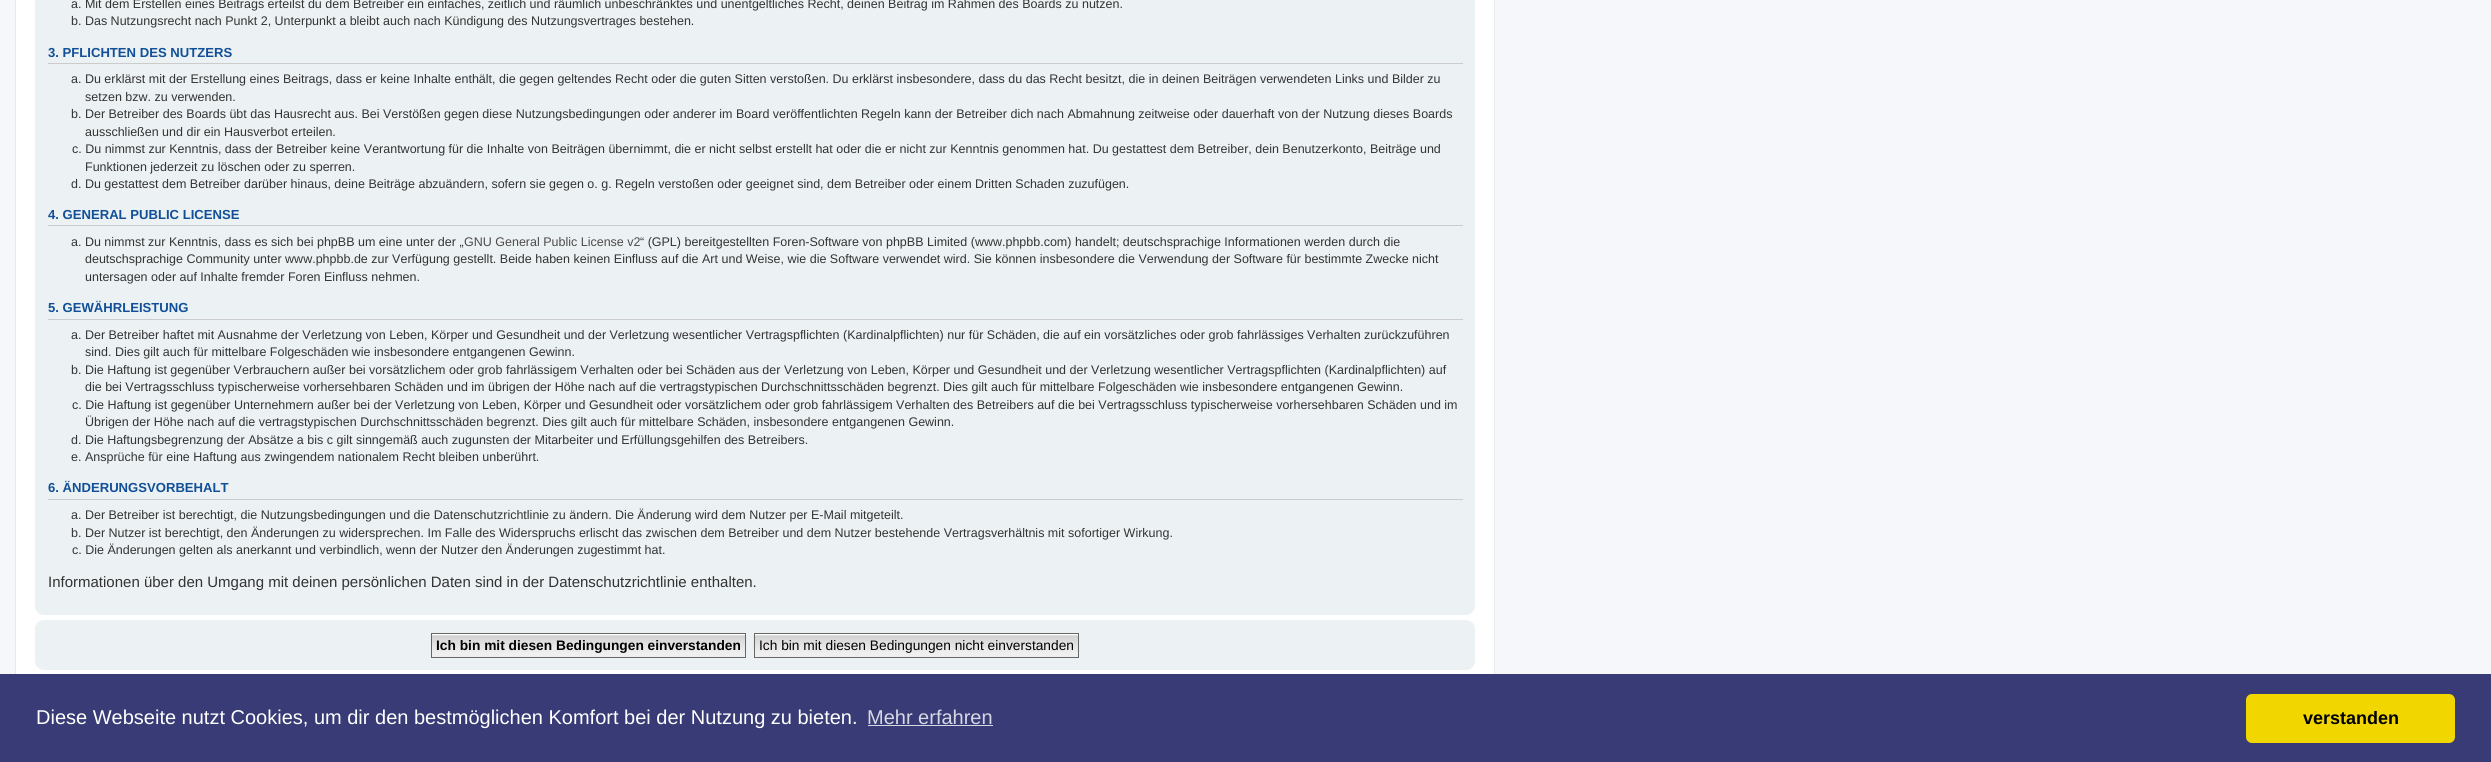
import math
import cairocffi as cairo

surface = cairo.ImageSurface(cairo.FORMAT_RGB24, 2491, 762)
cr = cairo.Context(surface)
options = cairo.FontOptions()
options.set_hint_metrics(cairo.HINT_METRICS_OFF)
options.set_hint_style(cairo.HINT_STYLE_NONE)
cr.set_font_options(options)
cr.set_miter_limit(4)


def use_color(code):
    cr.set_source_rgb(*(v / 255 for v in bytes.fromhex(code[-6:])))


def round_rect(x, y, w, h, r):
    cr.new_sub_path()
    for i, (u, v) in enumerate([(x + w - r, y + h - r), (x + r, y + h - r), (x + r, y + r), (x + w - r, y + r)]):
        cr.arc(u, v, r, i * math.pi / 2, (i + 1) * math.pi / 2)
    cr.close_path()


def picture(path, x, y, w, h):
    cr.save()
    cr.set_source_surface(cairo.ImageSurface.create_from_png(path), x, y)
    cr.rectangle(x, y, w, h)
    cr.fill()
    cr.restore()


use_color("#f5f7fa")
cr.paint()
use_color("#ffffff")
cr.rectangle(16, 0, 1478, 674)
cr.fill()
cr.rectangle(15.5, -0.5, 1479, 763)
use_color("#e6e9ed")
cr.set_line_width(1)
cr.stroke()
use_color("#ecf1f3")
round_rect(35, -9, 1440, 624, 9)
cr.fill()
cr.select_font_face("Liberation Sans")
cr.set_font_size(12.5)
use_color("#333333")
cr.move_to(71, 8)
cr.show_text("a. Mit dem Erstellen eines Beitrags erteilst du dem Betreiber ein einfaches, zeitlich und räumlich unbeschränktes und unentgeltliches Recht, deinen Beitrag im Rahmen des Boards zu nutzen.")
cr.move_to(71, 25)
cr.show_text("b. Das Nutzungsrecht nach Punkt 2, Unterpunkt a bleibt auch nach Kündigung des Nutzungsvertrages bestehen.")
use_color("#cccccc")
cr.rectangle(48, 63, 1415, 1)
cr.fill()
cr.select_font_face("Liberation Sans", cairo.FONT_SLANT_NORMAL, cairo.FONT_WEIGHT_BOLD)
cr.set_font_size(13.1)
use_color("#115098")
cr.move_to(48, 57)
cr.show_text("3. PFLICHTEN DES NUTZERS")
cr.select_font_face("Liberation Sans")
cr.set_font_size(12.5)
use_color("#333333")
cr.move_to(71, 83)
cr.show_text("a. Du erklärst mit der Erstellung eines Beitrags, dass er keine Inhalte enthält, die gegen geltendes Recht oder die guten Sitten verstoßen. Du erklärst insbesondere, dass du das Recht besitzt, die in deinen Beiträgen verwendeten Links und Bilder zu")
cr.move_to(85, 101)
cr.show_text("setzen bzw. zu verwenden.")
cr.move_to(71, 118)
cr.show_text("b. Der Betreiber des Boards übt das Hausrecht aus. Bei Verstößen gegen diese Nutzungsbedingungen oder anderer im Board veröffentlichten Regeln kann der Betreiber dich nach Abmahnung zeitweise oder dauerhaft von der Nutzung dieses Boards")
cr.move_to(85, 136)
cr.show_text("ausschließen und dir ein Hausverbot erteilen.")
cr.move_to(72, 153)
cr.show_text("c. Du nimmst zur Kenntnis, dass der Betreiber keine Verantwortung für die Inhalte von Beiträgen übernimmt, die er nicht selbst erstellt hat oder die er nicht zur Kenntnis genommen hat. Du gestattest dem Betreiber, dein Benutzerkonto, Beiträge und")
cr.move_to(85, 171)
cr.show_text("Funktionen jederzeit zu löschen oder zu sperren.")
cr.move_to(71, 188)
cr.show_text("d. Du gestattest dem Betreiber darüber hinaus, deine Beiträge abzuändern, sofern sie gegen o. g. Regeln verstoßen oder geeignet sind, dem Betreiber oder einem Dritten Schaden zuzufügen.")
use_color("#cccccc")
cr.rectangle(48, 225, 1415, 1)
cr.fill()
cr.select_font_face("Liberation Sans", cairo.FONT_SLANT_NORMAL, cairo.FONT_WEIGHT_BOLD)
cr.set_font_size(13.1)
use_color("#115098")
cr.move_to(48, 219)
cr.show_text("4. GENERAL PUBLIC LICENSE")
cr.select_font_face("Liberation Sans")
cr.set_font_size(12.5)
use_color("#333333")
cr.move_to(71, 246)
cr.show_text("a. Du nimmst zur Kenntnis, dass es sich bei phpBB um eine unter der „")
use_color("#4e4a4b")
cr.move_to(464, 246)
cr.show_text("GNU General Public License v2")
use_color("#333333")
cr.move_to(640, 246)
cr.show_text("“ (GPL) bereitgestellten Foren-Software von phpBB Limited (www.phpbb.com) handelt; deutschsprachige Informationen werden durch die")
cr.move_to(85, 263)
cr.show_text("deutschsprachige Community unter www.phpbb.de zur Verfügung gestellt. Beide haben keinen Einfluss auf die Art und Weise, wie die Software verwendet wird. Sie können insbesondere die Verwendung der Software für bestimmte Zwecke nicht")
cr.move_to(85, 281)
cr.show_text("untersagen oder auf Inhalte fremder Foren Einfluss nehmen.")
use_color("#cccccc")
cr.rectangle(48, 319, 1415, 1)
cr.fill()
cr.select_font_face("Liberation Sans", cairo.FONT_SLANT_NORMAL, cairo.FONT_WEIGHT_BOLD)
cr.set_font_size(13.1)
use_color("#115098")
cr.move_to(48, 312)
cr.show_text("5. GEWÄHRLEISTUNG")
cr.select_font_face("Liberation Sans")
cr.set_font_size(12.5)
use_color("#333333")
cr.move_to(71, 339)
cr.show_text("a. Der Betreiber haftet mit Ausnahme der Verletzung von Leben, Körper und Gesundheit und der Verletzung wesentlicher Vertragspflichten (Kardinalpflichten) nur für Schäden, die auf ein vorsätzliches oder grob fahrlässiges Verhalten zurückzuführen")
cr.move_to(85, 356)
cr.show_text("sind. Dies gilt auch für mittelbare Folgeschäden wie insbesondere entgangenen Gewinn.")
cr.move_to(71, 374)
cr.show_text("b. Die Haftung ist gegenüber Verbrauchern außer bei vorsätzlichem oder grob fahrlässigem Verhalten oder bei Schäden aus der Verletzung von Leben, Körper und Gesundheit und der Verletzung wesentlicher Vertragspflichten (Kardinalpflichten) auf")
cr.move_to(85, 391)
cr.show_text("die bei Vertragsschluss typischerweise vorhersehbaren Schäden und im übrigen der Höhe nach auf die vertragstypischen Durchschnittsschäden begrenzt. Dies gilt auch für mittelbare Folgeschäden wie insbesondere entgangenen Gewinn.")
cr.move_to(72, 409)
cr.show_text("c. Die Haftung ist gegenüber Unternehmern außer bei der Verletzung von Leben, Körper und Gesundheit oder vorsätzlichem oder grob fahrlässigem Verhalten des Betreibers auf die bei Vertragsschluss typischerweise vorhersehbaren Schäden und im")
cr.move_to(85, 426)
cr.show_text("Übrigen der Höhe nach auf die vertragstypischen Durchschnittsschäden begrenzt. Dies gilt auch für mittelbare Schäden, insbesondere entgangenen Gewinn.")
cr.move_to(71, 444)
cr.show_text("d. Die Haftungsbegrenzung der Absätze a bis c gilt sinngemäß auch zugunsten der Mitarbeiter und Erfüllungsgehilfen des Betreibers.")
cr.move_to(71, 461)
cr.show_text("e. Ansprüche für eine Haftung aus zwingendem nationalem Recht bleiben unberührt.")
use_color("#cccccc")
cr.rectangle(48, 499, 1415, 1)
cr.fill()
cr.select_font_face("Liberation Sans", cairo.FONT_SLANT_NORMAL, cairo.FONT_WEIGHT_BOLD)
cr.set_font_size(13.1)
use_color("#115098")
cr.move_to(48, 492)
cr.show_text("6. ÄNDERUNGSVORBEHALT")
cr.select_font_face("Liberation Sans")
cr.set_font_size(12.5)
use_color("#333333")
cr.move_to(71, 519)
cr.show_text("a. Der Betreiber ist berechtigt, die Nutzungsbedingungen und die Datenschutzrichtlinie zu ändern. Die Änderung wird dem Nutzer per E-Mail mitgeteilt.")
cr.move_to(71, 537)
cr.show_text("b. Der Nutzer ist berechtigt, den Änderungen zu widersprechen. Im Falle des Widerspruchs erlischt das zwischen dem Betreiber und dem Nutzer bestehende Vertragsverhältnis mit sofortiger Wirkung.")
cr.move_to(72, 554)
cr.show_text("c. Die Änderungen gelten als anerkannt und verbindlich, wenn der Nutzer den Änderungen zugestimmt hat.")
cr.set_font_size(15)
cr.move_to(48, 587)
cr.show_text("Informationen über den Umgang mit deinen persönlichen Daten sind in der Datenschutzrichtlinie enthalten.")
use_color("#ecf1f3")
round_rect(35, 620, 1440, 50, 9)
cr.fill()
picture("img1.png", 432, 634, 315, 24)
cr.rectangle(431.5, 633.5, 314, 24)
use_color("#666666")
cr.stroke()
cr.select_font_face("Liberation Sans", cairo.FONT_SLANT_NORMAL, cairo.FONT_WEIGHT_BOLD)
cr.set_font_size(13.75)
use_color("#000000")
cr.move_to(436, 650)
cr.show_text("Ich bin mit diesen Bedingungen einverstanden")
picture("img2.png", 753, 634, 325, 24)
cr.rectangle(754.5, 633.5, 324, 24)
use_color("#666666")
cr.stroke()
cr.select_font_face("Liberation Sans")
use_color("#000000")
cr.move_to(759, 650)
cr.show_text("Ich bin mit diesen Bedingungen nicht einverstanden")
use_color("#383b75")
cr.rectangle(0, 674, 2491, 88)
cr.fill()
cr.set_font_size(20)
use_color("#ffffff")
cr.move_to(36, 724)
cr.show_text("Diese Webseite nutzt Cookies, um dir den bestmöglichen Komfort bei der Nutzung zu bieten.")
use_color("#d7d8e3")
cr.move_to(867, 724)
cr.show_text("Mehr erfahren")
cr.rectangle(868, 725, 125, 1)
cr.fill()
use_color("#f1d600")
round_rect(2246, 694, 209, 49, 6)
cr.fill()
cr.select_font_face("Liberation Sans", cairo.FONT_SLANT_NORMAL, cairo.FONT_WEIGHT_BOLD)
cr.set_font_size(18)
use_color("#000000")
cr.move_to(2303, 724)
cr.show_text("verstanden")
surface.write_to_png("result.png")
